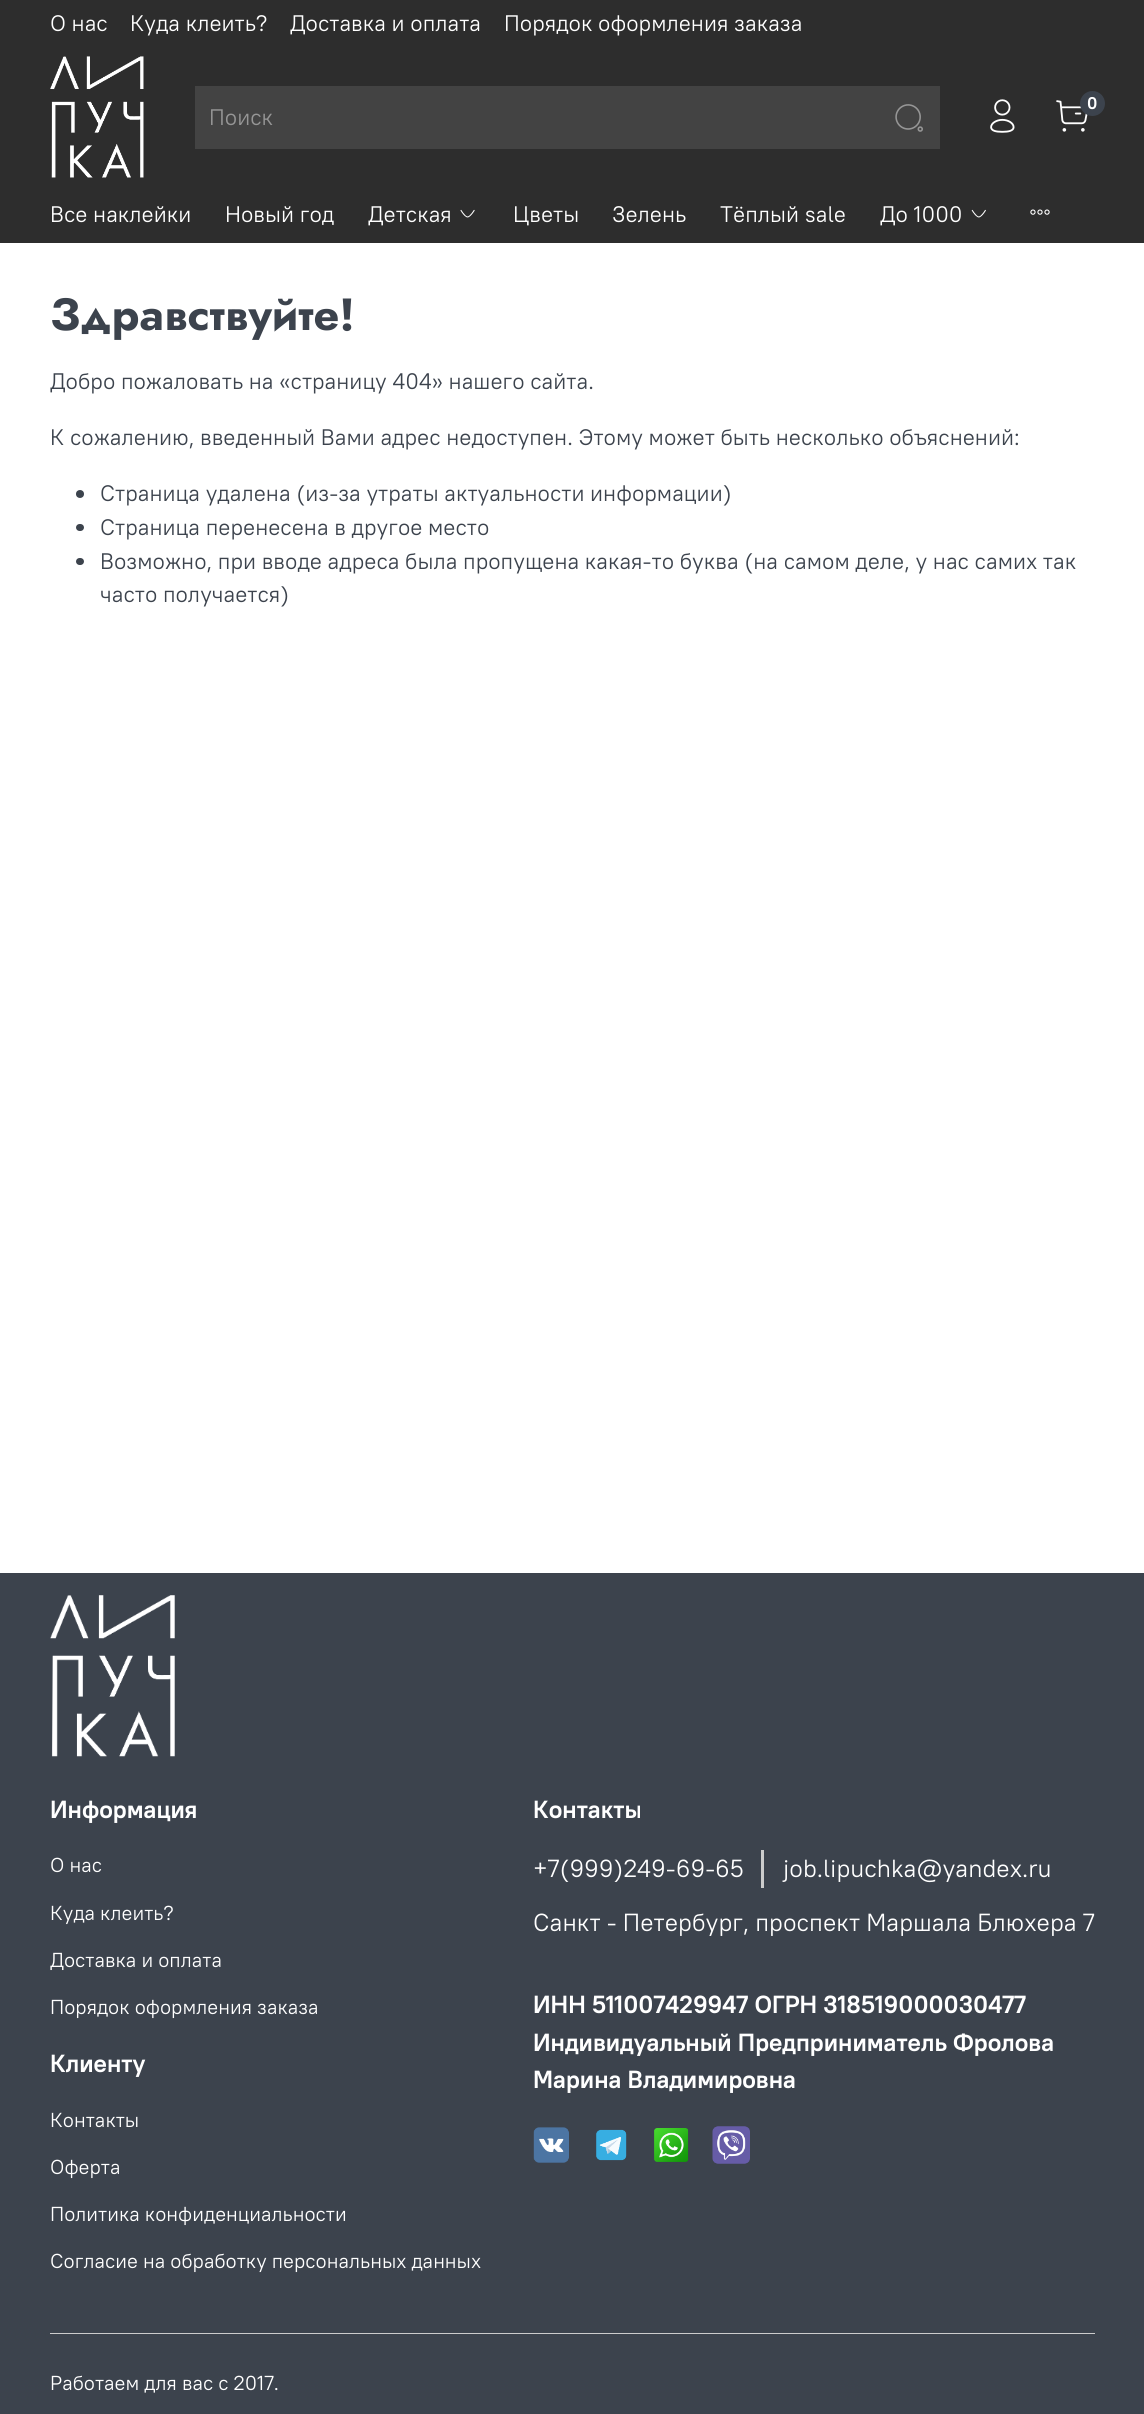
import math
import cairocffi as cairo

surface = cairo.ImageSurface(cairo.FORMAT_RGB24, 1144, 2414)
cr = cairo.Context(surface)
options = cairo.FontOptions()
options.set_hint_metrics(cairo.HINT_METRICS_OFF)
options.set_hint_style(cairo.HINT_STYLE_NONE)
cr.set_font_options(options)
cr.set_miter_limit(4)


def use_color(code):
    cr.set_source_rgb(*(v / 255 for v in bytes.fromhex(code[-6:])))


def round_rect(x, y, w, h, r):
    cr.new_sub_path()
    for i, (u, v) in enumerate([(x + w - r, y + h - r), (x + r, y + h - r), (x + r, y + r), (x + w - r, y + r)]):
        cr.arc(u, v, r, i * math.pi / 2, (i + 1) * math.pi / 2)
    cr.close_path()


def picture(path, x, y, w, h):
    cr.save()
    cr.set_source_surface(cairo.ImageSurface.create_from_png(path), x, y)
    cr.rectangle(x, y, w, h)
    cr.fill()
    cr.restore()


use_color("#ffffff")
cr.paint()
use_color("#2d2d2d")
cr.rectangle(0, 0, 1144, 243)
cr.fill()
cr.select_font_face("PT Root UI")
cr.set_font_size(22.5)
use_color("#ffffff")
cr.move_to(50, 31)
cr.show_text("О нас")
cr.move_to(130, 31)
cr.show_text("Куда клеить?")
cr.move_to(290, 31)
cr.show_text("Доставка и оплата")
cr.move_to(504, 31)
cr.show_text("Порядок оформления заказа")
picture("img1.png", 50, 56, 94, 122)
picture("img2.png", 990, 99, 25, 34)
picture("img3.png", 1056, 100, 32, 32)
use_color("#3c434d")
cr.arc(1092.5, 103.5, 12.5, 0, 2 * math.pi)
cr.fill()
cr.select_font_face("PT Root UI", cairo.FONT_SLANT_NORMAL, cairo.FONT_WEIGHT_BOLD)
cr.set_font_size(17)
use_color("#ffffff")
cr.move_to(1087, 109)
cr.show_text("0")
use_color("#434343")
cr.rectangle(195, 86, 745, 63)
cr.fill()
cr.select_font_face("PT Root UI")
cr.set_font_size(22.5)
use_color("#969696")
cr.move_to(209, 125)
cr.show_text("Поиск")
picture("img4.png", 895, 104, 28, 28)
use_color("#ffffff")
cr.move_to(50, 222)
cr.show_text("Все наклейки")
cr.move_to(225, 222)
cr.show_text("Новый год")
cr.move_to(368, 222)
cr.show_text("Детская")
picture("img5.png", 460, 209, 15, 9)
cr.move_to(513, 222)
cr.show_text("Цветы")
cr.move_to(612, 222)
cr.show_text("Зелень")
cr.move_to(720, 222)
cr.show_text("Тёплый sale")
cr.move_to(880, 222)
cr.show_text("До 1000")
picture("img6.png", 971, 209, 15, 9)
picture("img7.png", 1030, 209, 20, 6)
cr.select_font_face("Jost", cairo.FONT_SLANT_NORMAL, cairo.FONT_WEIGHT_BOLD)
cr.set_font_size(45)
use_color("#3c434d")
cr.move_to(50, 330)
cr.show_text("Здравствуйте!")
cr.select_font_face("PT Root UI")
cr.set_font_size(22.5)
cr.move_to(50, 389)
cr.show_text("Добро пожаловать на «страницу 404» нашего сайта.")
cr.move_to(50, 445)
cr.show_text("К сожалению, введенный Вами адрес недоступен. Этому может быть несколько объяснений:")
cr.new_path()
cr.arc(80, 494, 4, 0, 2 * math.pi)
cr.fill()
cr.move_to(100, 501)
cr.show_text("Страница удалена (из-за утраты актуальности информации)")
round_rect(76, 524, 8, 7, 3.5)
cr.fill()
cr.move_to(100, 535)
cr.show_text("Страница перенесена в другое место")
round_rect(76, 558, 8, 7, 3.5)
cr.fill()
cr.move_to(100, 569)
cr.show_text("Возможно, при вводе адреса была пропущена какая-то буква (на самом деле, у нас самих так")
cr.move_to(100, 602)
cr.show_text("часто получается)")
cr.rectangle(0, 1573, 1144, 841)
cr.fill()
picture("img8.png", 50, 1595, 125, 162)
cr.select_font_face("PT Root UI", cairo.FONT_SLANT_NORMAL, cairo.FONT_WEIGHT_BOLD)
cr.set_font_size(24.75)
use_color("#ffffff")
cr.move_to(50, 1818)
cr.show_text("Информация")
cr.select_font_face("PT Root UI")
cr.set_font_size(20.25)
cr.move_to(50, 1872)
cr.show_text("О нас")
cr.move_to(50, 1920)
cr.show_text("Куда клеить?")
cr.move_to(50, 1967)
cr.show_text("Доставка и оплата")
cr.move_to(50, 2014)
cr.show_text("Порядок оформления заказа")
cr.select_font_face("PT Root UI", cairo.FONT_SLANT_NORMAL, cairo.FONT_WEIGHT_BOLD)
cr.set_font_size(24.75)
cr.move_to(50, 2072)
cr.show_text("Клиенту")
cr.select_font_face("PT Root UI")
cr.set_font_size(20.25)
cr.move_to(50, 2127)
cr.show_text("Контакты")
cr.move_to(50, 2174)
cr.show_text("Оферта")
cr.move_to(50, 2221)
cr.show_text("Политика конфиденциальности")
cr.move_to(50, 2268)
cr.show_text("Согласие на обработку персональных данных")
cr.select_font_face("PT Root UI", cairo.FONT_SLANT_NORMAL, cairo.FONT_WEIGHT_BOLD)
cr.set_font_size(24.75)
cr.move_to(533, 1818)
cr.show_text("Контакты")
use_color("#cccccc")
cr.rectangle(761, 1850, 3, 38)
cr.fill()
cr.select_font_face("PT Root UI")
use_color("#ffffff")
cr.move_to(533, 1877)
cr.show_text("+7(999)249-69-65")
cr.move_to(783, 1877)
cr.show_text("job.lipuchka@yandex.ru")
cr.move_to(533, 1931)
cr.show_text("Санкт - Петербург, проспект Маршала Блюхера 7")
cr.select_font_face("PT Root UI", cairo.FONT_SLANT_NORMAL, cairo.FONT_WEIGHT_BOLD)
cr.move_to(533, 2013)
cr.show_text("ИНН 511007429947 ОГРН 318519000030477")
cr.move_to(533, 2051)
cr.show_text("Индивидуальный Предприниматель Фролова")
cr.move_to(533, 2088)
cr.show_text("Марина Владимировна")
picture("img9.png", 533, 2127, 36, 36)
picture("img10.png", 596, 2129, 31, 32)
picture("img11.png", 654, 2128, 35, 34)
picture("img12.png", 712, 2126, 38, 38)
use_color("#cccccc")
cr.rectangle(50, 2333, 1045, 1)
cr.fill()
cr.select_font_face("PT Root UI")
cr.set_font_size(20.25)
use_color("#ffffff")
cr.move_to(50, 2390)
cr.show_text("Работаем для вас с 2017.")
surface.write_to_png("result.png")
